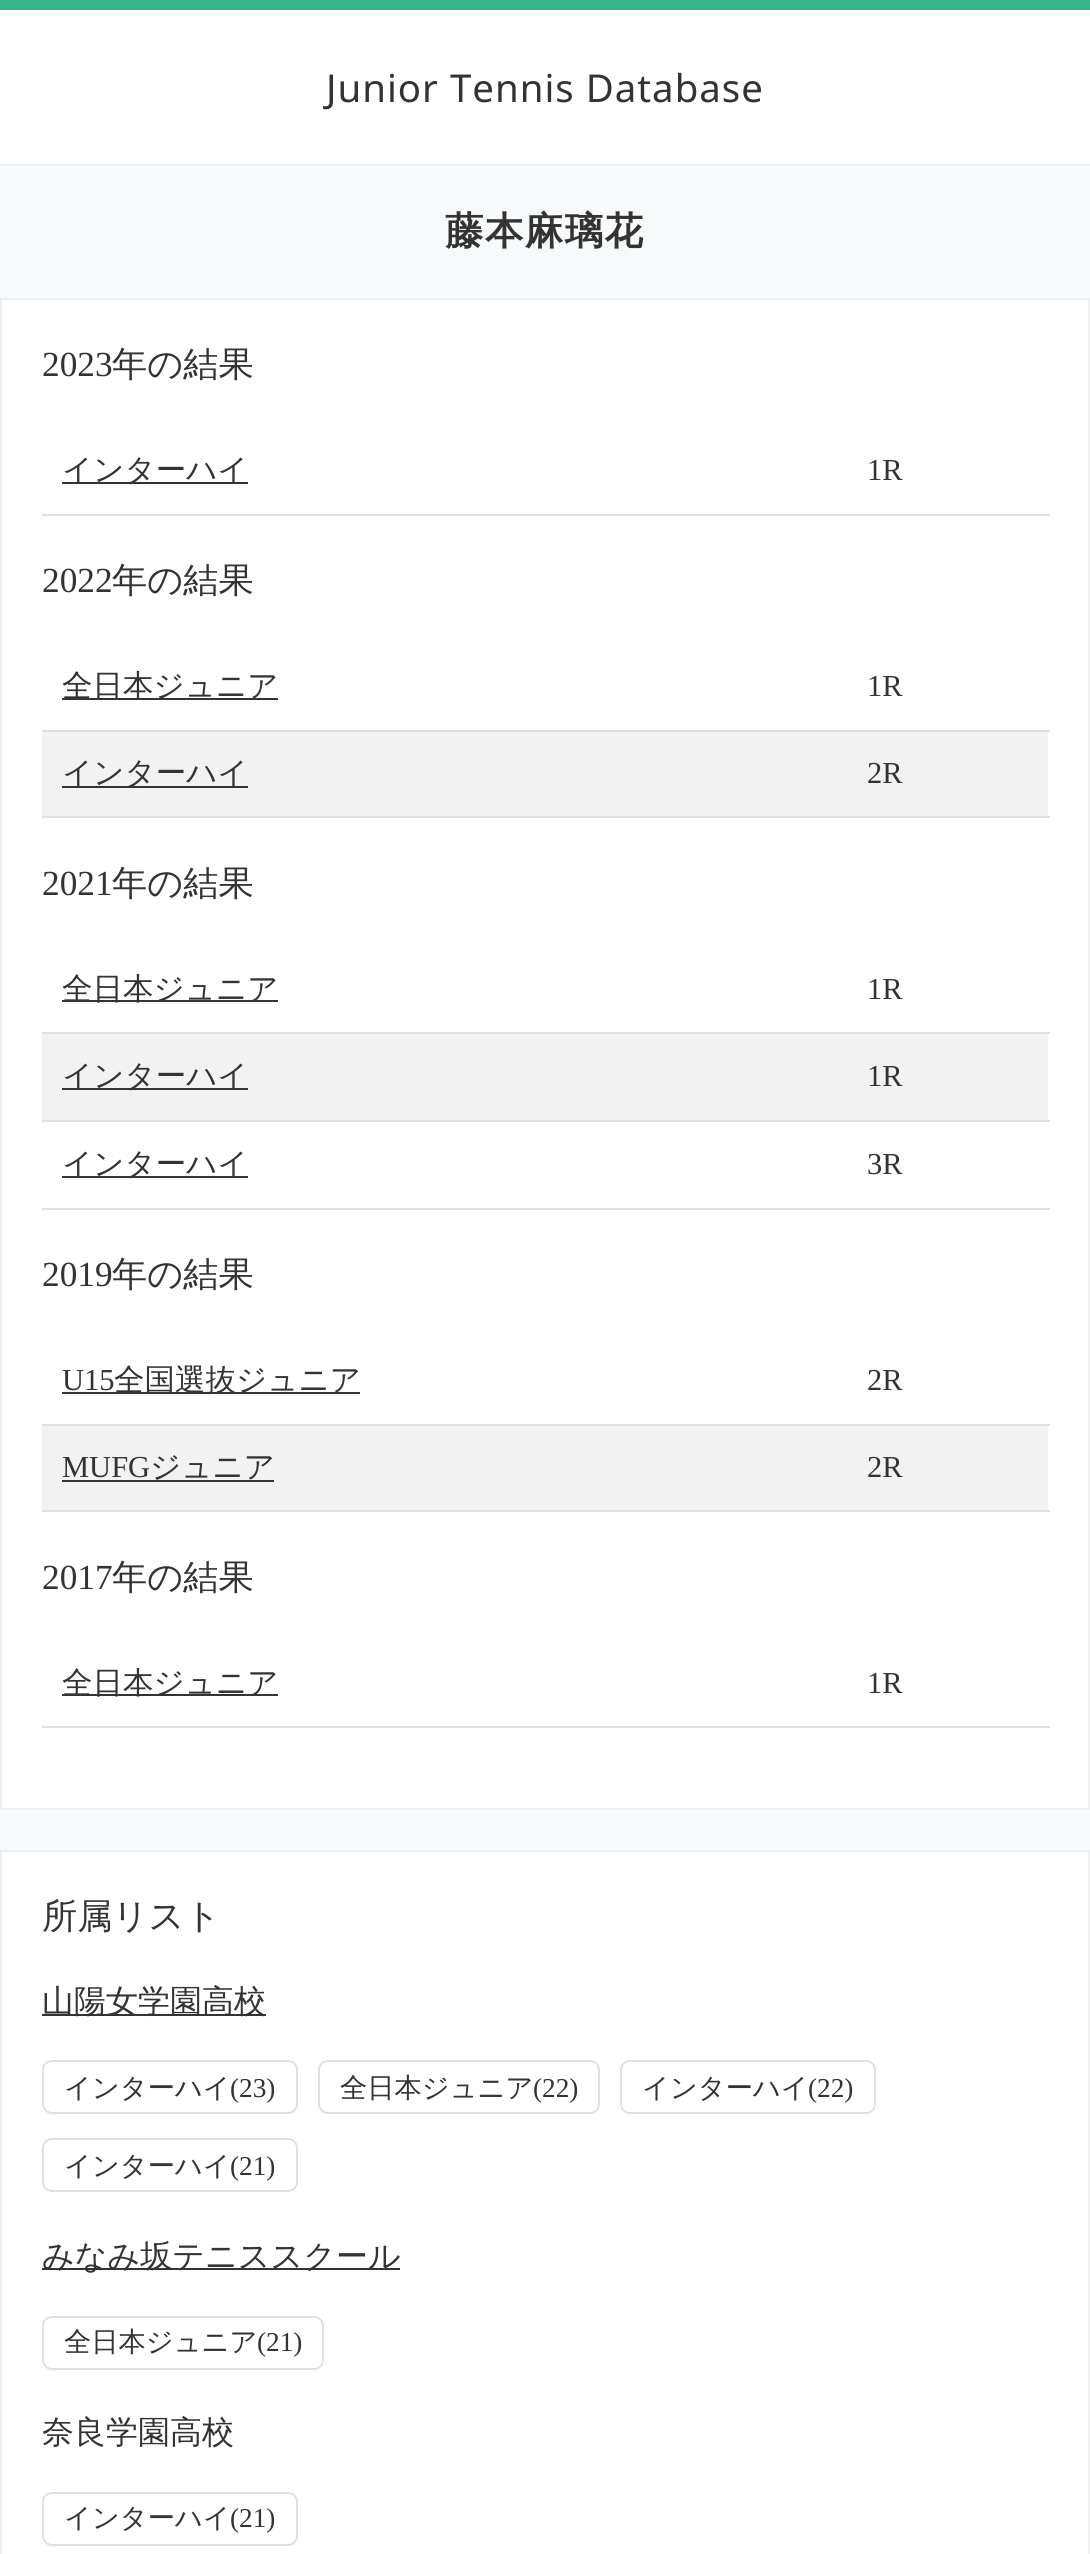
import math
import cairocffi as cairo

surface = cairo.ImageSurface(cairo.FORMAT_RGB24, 1090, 2554)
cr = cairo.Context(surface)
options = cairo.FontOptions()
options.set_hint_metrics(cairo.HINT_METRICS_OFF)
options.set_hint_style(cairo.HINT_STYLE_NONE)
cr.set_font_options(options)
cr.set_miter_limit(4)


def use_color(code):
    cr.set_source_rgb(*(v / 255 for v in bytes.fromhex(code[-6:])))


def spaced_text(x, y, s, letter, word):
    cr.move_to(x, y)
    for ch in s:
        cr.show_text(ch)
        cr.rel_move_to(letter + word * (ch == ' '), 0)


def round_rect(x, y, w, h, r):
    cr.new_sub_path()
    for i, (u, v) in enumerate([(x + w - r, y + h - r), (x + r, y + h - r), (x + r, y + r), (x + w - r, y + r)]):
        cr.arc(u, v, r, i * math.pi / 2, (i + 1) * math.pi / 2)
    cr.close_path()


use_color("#f8f9fa")
cr.paint()
use_color("#ffffff")
cr.rectangle(0, 10, 1090, 154)
cr.fill()
use_color("#38b48b")
cr.rectangle(0, 0, 1090, 10)
cr.fill()
use_color("#efefef")
cr.rectangle(0, 164, 1090, 2)
cr.fill()
cr.select_font_face("Noto Sans")
cr.set_font_size(38.4)
use_color("#333333")
spaced_text(326, 102, "Junior Tennis Database", 1, 0)
cr.select_font_face("WenQuanYi Zen Hei", cairo.FONT_SLANT_NORMAL, cairo.FONT_WEIGHT_BOLD)
spaced_text(445, 244, "藤本麻璃花", 1.5, 0)
use_color("#ffffff")
cr.rectangle(1, 299, 1088, 1510)
cr.fill_preserve()
use_color("#efefef")
cr.stroke()
cr.select_font_face("Liberation Serif")
cr.set_font_size(35.25)
use_color("#333333")
cr.move_to(42, 376)
cr.show_text("2023")
cr.select_font_face("WenQuanYi Zen Hei Medium")
cr.move_to(112, 376)
cr.show_text("年の結果")
cr.rectangle(62, 482, 186, 2)
cr.fill()
cr.set_font_size(30.5)
cr.move_to(62, 480)
cr.show_text("インターハイ")
use_color("#e0e0e0")
cr.rectangle(42, 514, 1008, 2)
cr.fill()
cr.select_font_face("Liberation Serif")
use_color("#333333")
cr.move_to(867, 480)
cr.show_text("1R")
cr.set_font_size(35.25)
cr.move_to(42, 592)
cr.show_text("2022")
cr.select_font_face("WenQuanYi Zen Hei Medium")
cr.move_to(112, 592)
cr.show_text("年の結果")
cr.rectangle(62, 698, 216, 2)
cr.fill()
cr.set_font_size(30.5)
cr.move_to(62, 696)
cr.show_text("全日本ジュニア")
use_color("#e0e0e0")
cr.rectangle(42, 730, 1008, 2)
cr.fill()
cr.select_font_face("Liberation Serif")
use_color("#333333")
cr.move_to(867, 696)
cr.show_text("1R")
use_color("#f2f2f2")
cr.rectangle(42, 732, 1006, 84)
cr.fill()
use_color("#333333")
cr.rectangle(62, 786, 186, 2)
cr.fill()
cr.select_font_face("WenQuanYi Zen Hei Medium")
cr.move_to(62, 783)
cr.show_text("インターハイ")
use_color("#e0e0e0")
cr.rectangle(42, 816, 1008, 2)
cr.fill()
cr.select_font_face("Liberation Serif")
use_color("#333333")
cr.move_to(867, 783)
cr.show_text("2R")
cr.set_font_size(35.25)
cr.move_to(42, 895)
cr.show_text("2021")
cr.select_font_face("WenQuanYi Zen Hei Medium")
cr.move_to(112, 895)
cr.show_text("年の結果")
cr.rectangle(62, 1000, 216, 2)
cr.fill()
cr.set_font_size(30.5)
cr.move_to(62, 999)
cr.show_text("全日本ジュニア")
use_color("#e0e0e0")
cr.rectangle(42, 1032, 1008, 2)
cr.fill()
cr.select_font_face("Liberation Serif")
use_color("#333333")
cr.move_to(867, 999)
cr.show_text("1R")
use_color("#f2f2f2")
cr.rectangle(42, 1034, 1006, 86)
cr.fill()
use_color("#333333")
cr.rectangle(62, 1088, 186, 2)
cr.fill()
cr.select_font_face("WenQuanYi Zen Hei Medium")
cr.move_to(62, 1086)
cr.show_text("インターハイ")
use_color("#e0e0e0")
cr.rectangle(42, 1120, 1008, 2)
cr.fill()
cr.select_font_face("Liberation Serif")
use_color("#333333")
cr.move_to(867, 1086)
cr.show_text("1R")
cr.rectangle(62, 1176, 186, 2)
cr.fill()
cr.select_font_face("WenQuanYi Zen Hei Medium")
cr.move_to(62, 1174)
cr.show_text("インターハイ")
use_color("#e0e0e0")
cr.rectangle(42, 1208, 1008, 2)
cr.fill()
cr.select_font_face("Liberation Serif")
use_color("#333333")
cr.move_to(867, 1174)
cr.show_text("3R")
cr.set_font_size(35.25)
cr.move_to(42, 1286)
cr.show_text("2019")
cr.select_font_face("WenQuanYi Zen Hei Medium")
cr.move_to(112, 1286)
cr.show_text("年の結果")
cr.select_font_face("Liberation Serif")
cr.set_font_size(30.5)
cr.move_to(62, 1390)
cr.show_text("U15")
cr.rectangle(62, 1392, 298, 2)
cr.fill()
cr.select_font_face("WenQuanYi Zen Hei Medium")
cr.move_to(114, 1390)
cr.show_text("全国選抜ジュニア")
use_color("#e0e0e0")
cr.rectangle(42, 1424, 1008, 2)
cr.fill()
cr.select_font_face("Liberation Serif")
use_color("#333333")
cr.move_to(867, 1390)
cr.show_text("2R")
use_color("#f2f2f2")
cr.rectangle(42, 1426, 1006, 84)
cr.fill()
use_color("#333333")
cr.move_to(62, 1477)
cr.show_text("MUFG")
cr.select_font_face("WenQuanYi Zen Hei Medium")
cr.move_to(150, 1477)
cr.show_text("ジュニア")
cr.rectangle(62, 1480, 212, 2)
cr.fill()
use_color("#e0e0e0")
cr.rectangle(42, 1510, 1008, 2)
cr.fill()
cr.select_font_face("Liberation Serif")
use_color("#333333")
cr.move_to(867, 1477)
cr.show_text("2R")
cr.set_font_size(35.25)
cr.move_to(42, 1589)
cr.show_text("2017")
cr.select_font_face("WenQuanYi Zen Hei Medium")
cr.move_to(112, 1589)
cr.show_text("年の結果")
cr.rectangle(62, 1694, 216, 2)
cr.fill()
cr.set_font_size(30.5)
cr.move_to(62, 1693)
cr.show_text("全日本ジュニア")
use_color("#e0e0e0")
cr.rectangle(42, 1726, 1008, 2)
cr.fill()
cr.select_font_face("Liberation Serif")
use_color("#333333")
cr.move_to(867, 1693)
cr.show_text("1R")
use_color("#ffffff")
cr.rectangle(1, 1851, 1088, 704)
cr.fill_preserve()
use_color("#efefef")
cr.stroke()
cr.select_font_face("WenQuanYi Zen Hei Medium")
cr.set_font_size(35.25)
use_color("#333333")
cr.move_to(42, 1928)
cr.show_text("所属リスト")
cr.rectangle(42, 2014, 224, 2)
cr.fill()
cr.set_font_size(32)
cr.move_to(42, 2012)
cr.show_text("山陽女学園高校")
round_rect(43, 2061, 254, 52, 9)
use_color("#e0e0e0")
cr.stroke()
cr.set_font_size(27.25)
use_color("#333333")
cr.move_to(64, 2097)
cr.show_text("インターハイ")
cr.select_font_face("Liberation Serif")
cr.move_to(230, 2097)
cr.show_text("(23)")
round_rect(319, 2061, 280, 52, 9)
use_color("#e0e0e0")
cr.stroke()
cr.select_font_face("WenQuanYi Zen Hei Medium")
use_color("#333333")
cr.move_to(340, 2097)
cr.show_text("全日本ジュニア")
cr.select_font_face("Liberation Serif")
cr.move_to(533, 2097)
cr.show_text("(22)")
round_rect(621, 2061, 254, 52, 9)
use_color("#e0e0e0")
cr.stroke()
cr.select_font_face("WenQuanYi Zen Hei Medium")
use_color("#333333")
cr.move_to(642, 2097)
cr.show_text("インターハイ")
cr.select_font_face("Liberation Serif")
cr.move_to(808, 2097)
cr.show_text("(22)")
round_rect(43, 2139, 254, 52, 9)
use_color("#e0e0e0")
cr.stroke()
cr.select_font_face("WenQuanYi Zen Hei Medium")
use_color("#333333")
cr.move_to(64, 2175)
cr.show_text("インターハイ")
cr.select_font_face("Liberation Serif")
cr.move_to(230, 2175)
cr.show_text("(21)")
cr.rectangle(42, 2268, 358, 2)
cr.fill()
cr.select_font_face("WenQuanYi Zen Hei Medium")
cr.set_font_size(32)
cr.move_to(42, 2267)
cr.show_text("みなみ坂テニススクール")
round_rect(43, 2317, 280, 52, 9)
use_color("#e0e0e0")
cr.stroke()
cr.set_font_size(27.25)
use_color("#333333")
cr.move_to(64, 2351)
cr.show_text("全日本ジュニア")
cr.select_font_face("Liberation Serif")
cr.move_to(257, 2351)
cr.show_text("(21)")
cr.select_font_face("WenQuanYi Zen Hei Medium")
cr.set_font_size(32)
cr.move_to(42, 2443)
cr.show_text("奈良学園高校")
round_rect(43, 2493, 254, 52, 9)
use_color("#e0e0e0")
cr.stroke()
cr.set_font_size(27.25)
use_color("#333333")
cr.move_to(64, 2527)
cr.show_text("インターハイ")
cr.select_font_face("Liberation Serif")
cr.move_to(230, 2527)
cr.show_text("(21)")
surface.write_to_png("result.png")
